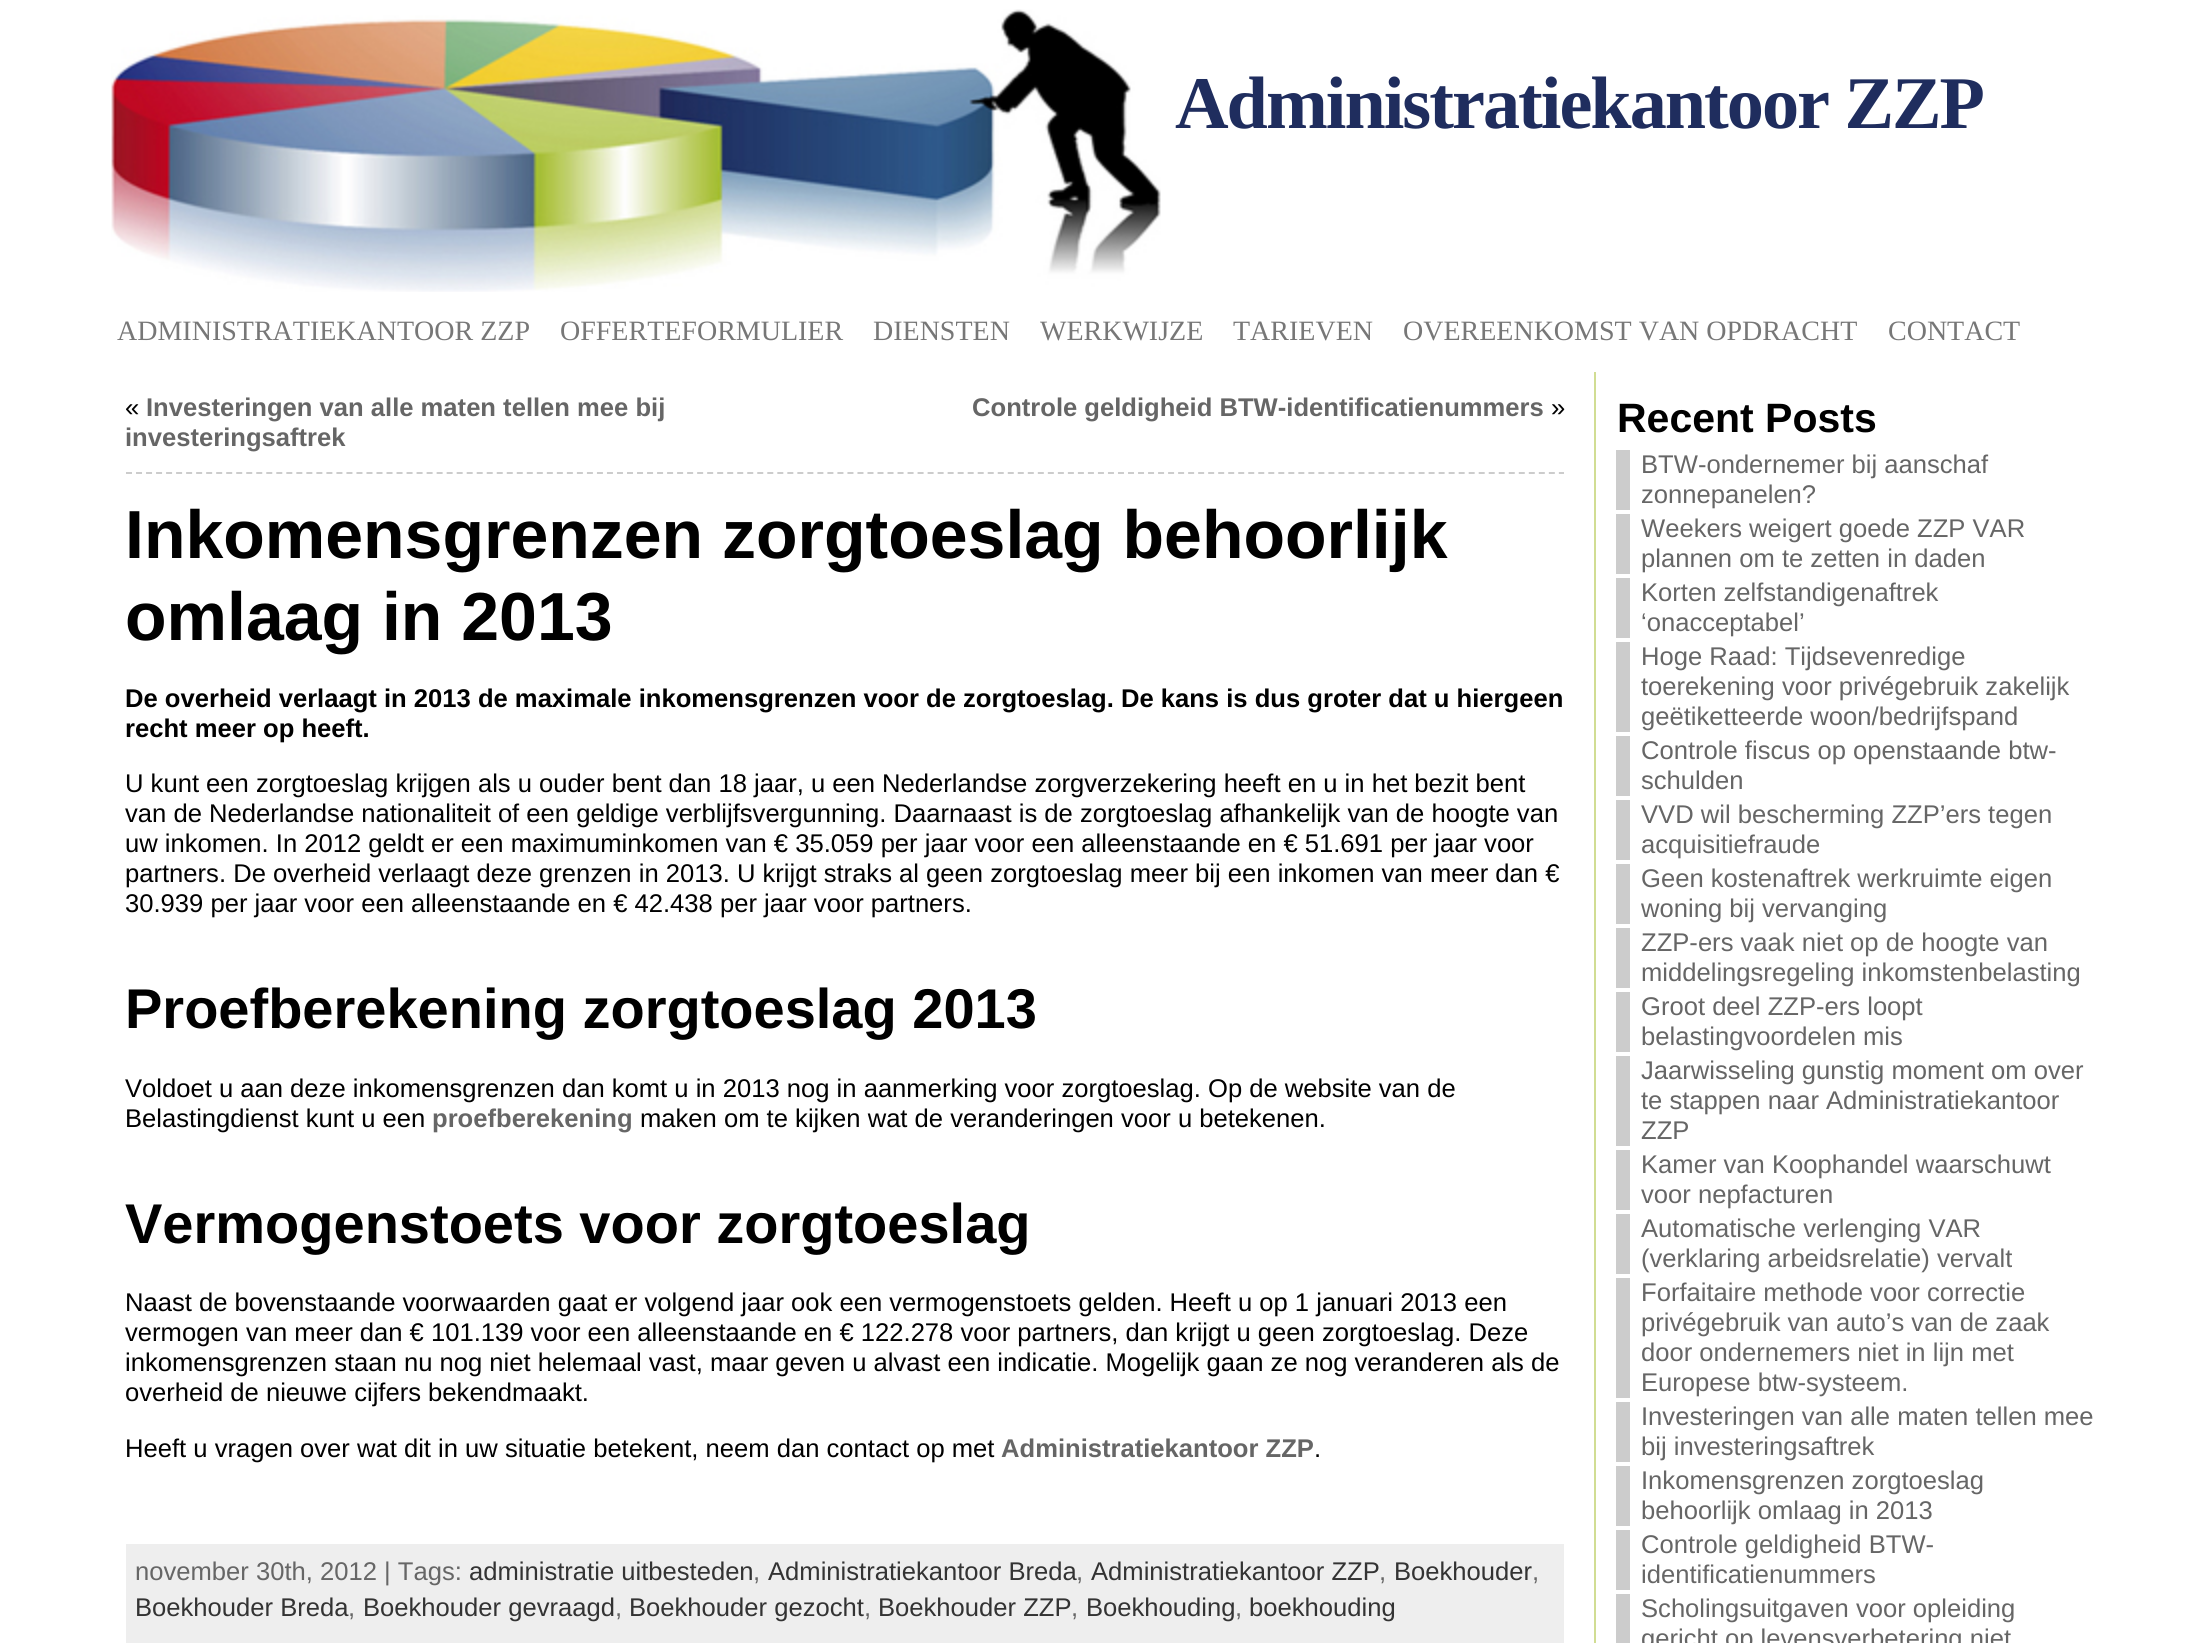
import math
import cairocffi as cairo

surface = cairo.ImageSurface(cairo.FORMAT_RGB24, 2209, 1643)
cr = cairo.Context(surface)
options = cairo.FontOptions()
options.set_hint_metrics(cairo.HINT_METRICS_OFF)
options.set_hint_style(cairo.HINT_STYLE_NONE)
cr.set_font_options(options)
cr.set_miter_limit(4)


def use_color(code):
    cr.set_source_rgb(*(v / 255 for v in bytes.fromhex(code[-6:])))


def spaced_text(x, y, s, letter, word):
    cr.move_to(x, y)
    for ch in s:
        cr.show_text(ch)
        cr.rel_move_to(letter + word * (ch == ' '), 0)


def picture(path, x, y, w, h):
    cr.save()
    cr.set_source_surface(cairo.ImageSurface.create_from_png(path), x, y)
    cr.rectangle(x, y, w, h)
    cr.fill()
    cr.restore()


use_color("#ffffff")
cr.paint()
picture("img1.png", 111, 9, 1050, 283)
cr.select_font_face("Liberation Serif", cairo.FONT_SLANT_NORMAL, cairo.FONT_WEIGHT_BOLD)
cr.set_font_size(74.25)
use_color("#1f2d5e")
spaced_text(1175, 128, "Administratiekantoor ZZP", -2, 0)
cr.select_font_face("Liberation Serif")
cr.set_font_size(28)
use_color("#777777")
cr.move_to(117, 340)
cr.show_text("ADMINISTRATIEKANTOOR ZZP")
cr.move_to(560, 340)
cr.show_text("OFFERTEFORMULIER")
cr.move_to(873, 340)
cr.show_text("DIENSTEN")
cr.move_to(1040, 340)
cr.show_text("WERKWIJZE")
cr.move_to(1233, 340)
cr.show_text("TARIEVEN")
cr.move_to(1403, 340)
cr.show_text("OVEREENKOMST VAN OPDRACHT")
cr.move_to(1888, 340)
cr.show_text("CONTACT")
cr.new_path()
cr.move_to(126, 473)
cr.line_to(1564, 473)
use_color("#cccccc")
cr.set_dash([6, 4.02])
cr.stroke()
cr.select_font_face("Liberation Sans")
cr.set_font_size(25.6)
use_color("#000000")
cr.move_to(125, 416)
cr.show_text("«")
cr.select_font_face("Liberation Sans", cairo.FONT_SLANT_NORMAL, cairo.FONT_WEIGHT_BOLD)
use_color("#666666")
cr.move_to(146, 416)
cr.show_text("Investeringen van alle maten tellen mee bij")
cr.move_to(125, 446)
cr.show_text("investeringsaftrek")
cr.move_to(972, 416)
cr.show_text("Controle geldigheid BTW-identificatienummers")
cr.select_font_face("Liberation Sans")
use_color("#000000")
cr.move_to(1551, 416)
cr.show_text("»")
cr.select_font_face("Liberation Sans", cairo.FONT_SLANT_NORMAL, cairo.FONT_WEIGHT_BOLD)
cr.set_font_size(68)
cr.move_to(125, 558)
cr.show_text("Inkomensgrenzen zorgtoeslag behoorlijk")
cr.move_to(125, 640)
cr.show_text("omlaag in 2013")
cr.set_font_size(25.6)
cr.move_to(125, 707)
cr.show_text("De overheid verlaagt in 2013 de maximale inkomensgrenzen voor de zorgtoeslag. De kans is dus groter dat u hiergeen")
cr.move_to(125, 737)
cr.show_text("recht meer op heeft.")
cr.select_font_face("Liberation Sans")
cr.move_to(125, 792)
cr.show_text("U kunt een zorgtoeslag krijgen als u ouder bent dan 18 jaar, u een Nederlandse zorgverzekering heeft en u in het bezit bent")
cr.move_to(125, 822)
cr.show_text("van de Nederlandse nationaliteit of een geldige verblijfsvergunning. Daarnaast is de zorgtoeslag afhankelijk van de hoogte van")
cr.move_to(125, 852)
cr.show_text("uw inkomen. In 2012 geldt er een maximuminkomen van € 35.059 per jaar voor een alleenstaande en € 51.691 per jaar voor")
cr.move_to(125, 882)
cr.show_text("partners. De overheid verlaagt deze grenzen in 2013. U krijgt straks al geen zorgtoeslag meer bij een inkomen van meer dan €")
cr.move_to(125, 912)
cr.show_text("30.939 per jaar voor een alleenstaande en € 42.438 per jaar voor partners.")
cr.select_font_face("Liberation Sans", cairo.FONT_SLANT_NORMAL, cairo.FONT_WEIGHT_BOLD)
cr.set_font_size(56)
cr.move_to(125, 1028)
cr.show_text("Proefberekening zorgtoeslag 2013")
cr.select_font_face("Liberation Sans")
cr.set_font_size(25.6)
cr.move_to(125, 1097)
cr.show_text("Voldoet u aan deze inkomensgrenzen dan komt u in 2013 nog in aanmerking voor zorgtoeslag. Op de website van de")
cr.move_to(125, 1127)
cr.show_text("Belastingdienst kunt u een")
cr.select_font_face("Liberation Sans", cairo.FONT_SLANT_NORMAL, cairo.FONT_WEIGHT_BOLD)
use_color("#666666")
cr.move_to(432, 1127)
cr.show_text("proefberekening")
cr.select_font_face("Liberation Sans")
use_color("#000000")
cr.move_to(640, 1127)
cr.show_text("maken om te kijken wat de veranderingen voor u betekenen.")
cr.select_font_face("Liberation Sans", cairo.FONT_SLANT_NORMAL, cairo.FONT_WEIGHT_BOLD)
cr.set_font_size(56)
cr.move_to(125, 1243)
cr.show_text("Vermogenstoets voor zorgtoeslag")
cr.select_font_face("Liberation Sans")
cr.set_font_size(25.6)
cr.move_to(125, 1311)
cr.show_text("Naast de bovenstaande voorwaarden gaat er volgend jaar ook een vermogenstoets gelden. Heeft u op 1 januari 2013 een")
cr.move_to(125, 1341)
cr.show_text("vermogen van meer dan € 101.139 voor een alleenstaande en € 122.278 voor partners, dan krijgt u geen zorgtoeslag. Deze")
cr.move_to(125, 1371)
cr.show_text("inkomensgrenzen staan nu nog niet helemaal vast, maar geven u alvast een indicatie. Mogelijk gaan ze nog veranderen als de")
cr.move_to(125, 1401)
cr.show_text("overheid de nieuwe cijfers bekendmaakt.")
cr.move_to(125, 1457)
cr.show_text("Heeft u vragen over wat dit in uw situatie betekent, neem dan contact op met")
cr.select_font_face("Liberation Sans", cairo.FONT_SLANT_NORMAL, cairo.FONT_WEIGHT_BOLD)
use_color("#666666")
cr.move_to(1001, 1457)
cr.show_text("Administratiekantoor ZZP")
cr.select_font_face("Liberation Sans")
use_color("#000000")
cr.move_to(1314, 1457)
cr.show_text(".")
use_color("#eeeeee")
cr.rectangle(126, 1544, 1438, 99)
cr.fill()
use_color("#666666")
cr.move_to(135, 1580)
cr.show_text("november 30th, 2012 | Tags:")
use_color("#333333")
cr.move_to(469, 1580)
cr.show_text("administratie uitbesteden")
use_color("#666666")
cr.move_to(753, 1580)
cr.show_text(",")
use_color("#333333")
cr.move_to(768, 1580)
cr.show_text("Administratiekantoor Breda")
use_color("#666666")
cr.move_to(1076, 1580)
cr.show_text(",")
use_color("#333333")
cr.move_to(1091, 1580)
cr.show_text("Administratiekantoor ZZP")
use_color("#666666")
cr.move_to(1379, 1580)
cr.show_text(",")
use_color("#333333")
cr.move_to(1394, 1580)
cr.show_text("Boekhouder")
use_color("#666666")
cr.move_to(1532, 1580)
cr.show_text(",")
use_color("#333333")
cr.move_to(135, 1616)
cr.show_text("Boekhouder Breda")
use_color("#666666")
cr.move_to(348, 1616)
cr.show_text(",")
use_color("#333333")
cr.move_to(363, 1616)
cr.show_text("Boekhouder gevraagd")
use_color("#666666")
cr.move_to(615, 1616)
cr.show_text(",")
use_color("#333333")
cr.move_to(629, 1616)
cr.show_text("Boekhouder gezocht")
use_color("#666666")
cr.move_to(864, 1616)
cr.show_text(",")
use_color("#333333")
cr.move_to(878, 1616)
cr.show_text("Boekhouder ZZP")
use_color("#666666")
cr.move_to(1071, 1616)
cr.show_text(",")
use_color("#333333")
cr.move_to(1086, 1616)
cr.show_text("Boekhouding")
use_color("#666666")
cr.move_to(1235, 1616)
cr.show_text(",")
use_color("#333333")
cr.move_to(1249, 1616)
cr.show_text("boekhouding")
use_color("#d1dd93")
cr.rectangle(1594, 372, 2, 1271)
cr.fill()
cr.select_font_face("Liberation Sans", cairo.FONT_SLANT_NORMAL, cairo.FONT_WEIGHT_BOLD)
cr.set_font_size(41)
use_color("#000000")
cr.move_to(1617, 432)
cr.show_text("Recent Posts")
use_color("#cccccc")
cr.rectangle(1616, 450, 14, 60)
cr.fill()
cr.select_font_face("Liberation Sans")
cr.set_font_size(25.6)
use_color("#666666")
cr.move_to(1641, 473)
cr.show_text("BTW-ondernemer bij aanschaf")
cr.move_to(1641, 503)
cr.show_text("zonnepanelen?")
use_color("#cccccc")
cr.rectangle(1616, 514, 14, 60)
cr.fill()
use_color("#666666")
cr.move_to(1641, 537)
cr.show_text("Weekers weigert goede ZZP VAR")
cr.move_to(1641, 567)
cr.show_text("plannen om te zetten in daden")
use_color("#cccccc")
cr.rectangle(1616, 578, 14, 60)
cr.fill()
use_color("#666666")
cr.move_to(1641, 601)
cr.show_text("Korten zelfstandigenaftrek")
cr.move_to(1641, 631)
cr.show_text("‘onacceptabel’")
use_color("#cccccc")
cr.rectangle(1616, 642, 14, 90)
cr.fill()
use_color("#666666")
cr.move_to(1641, 665)
cr.show_text("Hoge Raad: Tijdsevenredige")
cr.move_to(1641, 695)
cr.show_text("toerekening voor privégebruik zakelijk")
cr.move_to(1641, 725)
cr.show_text("geëtiketteerde woon/bedrijfspand")
use_color("#cccccc")
cr.rectangle(1616, 736, 14, 60)
cr.fill()
use_color("#666666")
cr.move_to(1641, 759)
cr.show_text("Controle fiscus op openstaande btw-")
cr.move_to(1641, 789)
cr.show_text("schulden")
use_color("#cccccc")
cr.rectangle(1616, 800, 14, 60)
cr.fill()
use_color("#666666")
cr.move_to(1641, 823)
cr.show_text("VVD wil bescherming ZZP’ers tegen")
cr.move_to(1641, 853)
cr.show_text("acquisitiefraude")
use_color("#cccccc")
cr.rectangle(1616, 864, 14, 60)
cr.fill()
use_color("#666666")
cr.move_to(1641, 887)
cr.show_text("Geen kostenaftrek werkruimte eigen")
cr.move_to(1641, 917)
cr.show_text("woning bij vervanging")
use_color("#cccccc")
cr.rectangle(1616, 928, 14, 60)
cr.fill()
use_color("#666666")
cr.move_to(1641, 951)
cr.show_text("ZZP-ers vaak niet op de hoogte van")
cr.move_to(1641, 981)
cr.show_text("middelingsregeling inkomstenbelasting")
use_color("#cccccc")
cr.rectangle(1616, 992, 14, 60)
cr.fill()
use_color("#666666")
cr.move_to(1641, 1015)
cr.show_text("Groot deel ZZP-ers loopt")
cr.move_to(1641, 1045)
cr.show_text("belastingvoordelen mis")
use_color("#cccccc")
cr.rectangle(1616, 1056, 14, 90)
cr.fill()
use_color("#666666")
cr.move_to(1641, 1079)
cr.show_text("Jaarwisseling gunstig moment om over")
cr.move_to(1641, 1109)
cr.show_text("te stappen naar Administratiekantoor")
cr.move_to(1641, 1139)
cr.show_text("ZZP")
use_color("#cccccc")
cr.rectangle(1616, 1150, 14, 60)
cr.fill()
use_color("#666666")
cr.move_to(1641, 1173)
cr.show_text("Kamer van Koophandel waarschuwt")
cr.move_to(1641, 1203)
cr.show_text("voor nepfacturen")
use_color("#cccccc")
cr.rectangle(1616, 1214, 14, 60)
cr.fill()
use_color("#666666")
cr.move_to(1641, 1237)
cr.show_text("Automatische verlenging VAR")
cr.move_to(1641, 1267)
cr.show_text("(verklaring arbeidsrelatie) vervalt")
use_color("#cccccc")
cr.rectangle(1616, 1278, 14, 120)
cr.fill()
use_color("#666666")
cr.move_to(1641, 1301)
cr.show_text("Forfaitaire methode voor correctie")
cr.move_to(1641, 1331)
cr.show_text("privégebruik van auto’s van de zaak")
cr.move_to(1641, 1361)
cr.show_text("door ondernemers niet in lijn met")
cr.move_to(1641, 1391)
cr.show_text("Europese btw-systeem.")
use_color("#cccccc")
cr.rectangle(1616, 1402, 14, 60)
cr.fill()
use_color("#666666")
cr.move_to(1641, 1425)
cr.show_text("Investeringen van alle maten tellen mee")
cr.move_to(1641, 1455)
cr.show_text("bij investeringsaftrek")
use_color("#cccccc")
cr.rectangle(1616, 1466, 14, 60)
cr.fill()
use_color("#666666")
cr.move_to(1641, 1489)
cr.show_text("Inkomensgrenzen zorgtoeslag")
cr.move_to(1641, 1519)
cr.show_text("behoorlijk omlaag in 2013")
use_color("#cccccc")
cr.rectangle(1616, 1530, 14, 60)
cr.fill()
use_color("#666666")
cr.move_to(1641, 1553)
cr.show_text("Controle geldigheid BTW-")
cr.move_to(1641, 1583)
cr.show_text("identificatienummers")
use_color("#cccccc")
cr.rectangle(1616, 1594, 14, 49)
cr.fill()
use_color("#666666")
cr.move_to(1641, 1617)
cr.show_text("Scholingsuitgaven voor opleiding")
cr.move_to(1641, 1647)
cr.show_text("gericht op levensverbetering niet")
surface.write_to_png("result.png")
